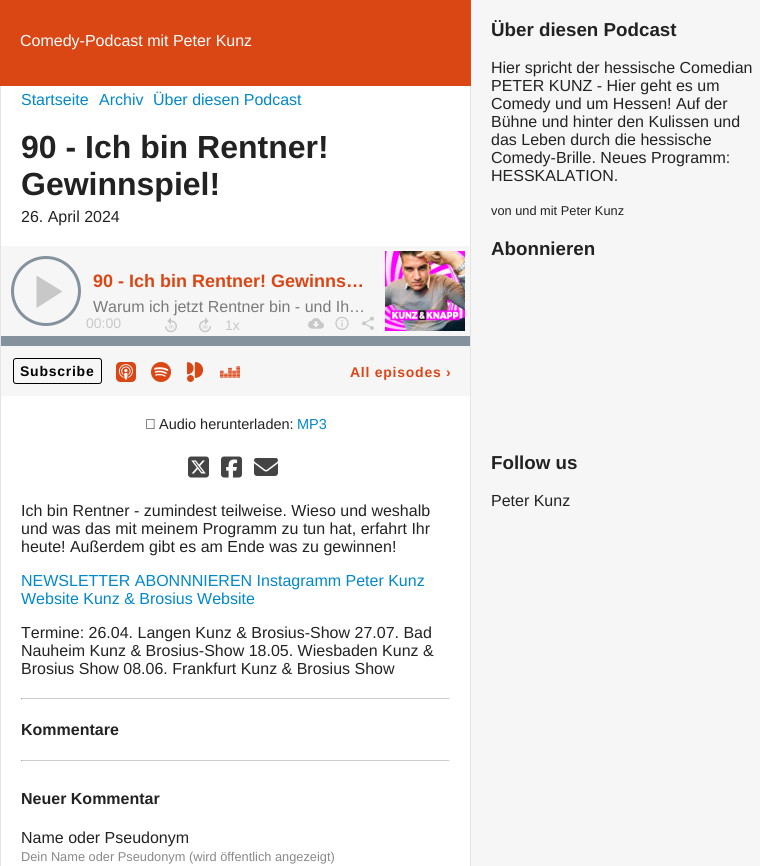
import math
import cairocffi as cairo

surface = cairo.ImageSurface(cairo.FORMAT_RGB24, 760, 866)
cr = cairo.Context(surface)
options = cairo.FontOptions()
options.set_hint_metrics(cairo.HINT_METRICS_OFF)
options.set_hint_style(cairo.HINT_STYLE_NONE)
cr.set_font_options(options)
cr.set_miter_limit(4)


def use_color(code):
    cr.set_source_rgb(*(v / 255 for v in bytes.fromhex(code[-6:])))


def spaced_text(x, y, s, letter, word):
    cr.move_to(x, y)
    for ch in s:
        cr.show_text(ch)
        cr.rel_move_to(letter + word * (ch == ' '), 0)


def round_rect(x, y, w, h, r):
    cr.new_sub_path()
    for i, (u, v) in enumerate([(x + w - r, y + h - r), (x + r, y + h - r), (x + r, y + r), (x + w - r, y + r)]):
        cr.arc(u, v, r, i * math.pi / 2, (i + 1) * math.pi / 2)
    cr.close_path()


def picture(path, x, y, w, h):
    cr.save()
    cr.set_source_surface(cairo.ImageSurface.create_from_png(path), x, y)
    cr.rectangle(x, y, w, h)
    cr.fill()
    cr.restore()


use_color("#f6f6f6")
cr.paint()
use_color("#ffffff")
cr.rectangle(1, 86, 469, 780)
cr.fill()
use_color("#db4615")
cr.rectangle(0, 0, 471, 86)
cr.fill()
cr.select_font_face("Liberation Sans")
cr.set_font_size(16)
use_color("#ffffff")
cr.move_to(20, 46)
cr.show_text("Comedy-Podcast mit Peter Kunz")
use_color("#e4e4e4")
cr.rectangle(470, 86, 1, 780)
cr.fill()
cr.rectangle(0, 86, 1, 780)
cr.fill()
use_color("#0088cc")
cr.move_to(21, 105)
cr.show_text("Startseite")
cr.move_to(99, 105)
cr.show_text("Archiv")
cr.move_to(153, 105)
cr.show_text("Über diesen Podcast")
cr.select_font_face("Liberation Sans", cairo.FONT_SLANT_NORMAL, cairo.FONT_WEIGHT_BOLD)
cr.set_font_size(32)
use_color("#222222")
cr.move_to(21, 158)
cr.show_text("90 - Ich bin Rentner!")
cr.move_to(21, 195)
cr.show_text("Gewinnspiel!")
cr.select_font_face("Liberation Sans")
cr.set_font_size(16)
cr.move_to(21, 222)
cr.show_text("26. April 2024")
use_color("#f6f6f6")
cr.rectangle(1, 246, 469, 150)
cr.fill()
cr.arc(46, 291, 33.5, 0, 2 * math.pi)
use_color("#83929c")
cr.set_line_width(3)
cr.stroke()
use_color("#c8c8c8")
cr.new_path()
cr.move_to(36.5, 275.5)
cr.line_to(62.5, 291.5)
cr.line_to(36.5, 308)
cr.close_path()
cr.fill()
cr.select_font_face("Liberation Sans", cairo.FONT_SLANT_NORMAL, cairo.FONT_WEIGHT_BOLD)
cr.set_font_size(18)
use_color("#db4615")
cr.move_to(93, 287)
cr.show_text("90 - Ich bin Rentner! Gewinns…")
cr.select_font_face("Liberation Sans")
cr.set_font_size(16)
use_color("#7a7a7a")
cr.move_to(93, 312)
cr.show_text("Warum ich jetzt Rentner bin - und Ih…")
picture("img1.png", 385, 251, 80, 80)
cr.set_font_size(14)
use_color("#c8c8c8")
cr.move_to(86, 328)
cr.show_text("00:00")
use_color("#83929c")
cr.rectangle(1, 336, 469, 10)
cr.fill()
picture("img2.png", 165, 317, 12, 16)
picture("img3.png", 199, 317, 12, 16)
use_color("#c8c8c8")
cr.move_to(225, 330)
cr.show_text("1x")
picture("img4.png", 308, 318, 16, 11)
picture("img5.png", 335, 316, 14, 14)
picture("img6.png", 362, 316, 12, 14)
round_rect(13.5, 358.5, 88, 25, 2.5)
use_color("#000000")
cr.set_line_width(1)
cr.stroke()
cr.select_font_face("Liberation Sans", cairo.FONT_SLANT_NORMAL, cairo.FONT_WEIGHT_BOLD)
spaced_text(20, 376, "Subscribe", 0.75, 0)
picture("img7.png", 116, 362, 20, 20)
picture("img8.png", 151, 362, 20, 20)
picture("img9.png", 187, 362, 17, 20)
picture("img10.png", 220, 366, 20, 12)
use_color("#db4615")
spaced_text(350, 377, "All episodes ›", 0.75, 0)
picture("img11.png", 146, 419, 9, 10)
cr.select_font_face("Liberation Sans")
cr.set_font_size(14.5)
use_color("#222222")
cr.move_to(159, 429)
cr.show_text("Audio herunterladen:")
use_color("#0088cc")
cr.move_to(297, 429)
cr.show_text("MP3")
picture("img12.png", 188, 456, 21, 22)
picture("img13.png", 221, 456, 21, 22)
picture("img14.png", 254, 458, 24, 18)
cr.set_font_size(16)
use_color("#222222")
cr.move_to(21, 516)
cr.show_text("Ich bin Rentner - zumindest teilweise. Wieso und weshalb")
cr.move_to(21, 534)
cr.show_text("und was das mit meinem Programm zu tun hat, erfahrt Ihr")
cr.move_to(21, 552)
cr.show_text("heute! Außerdem gibt es am Ende was zu gewinnen!")
use_color("#0088cc")
cr.move_to(21, 586)
cr.show_text("NEWSLETTER ABONNNIEREN Instagramm Peter Kunz")
cr.move_to(21, 604)
cr.show_text("Website Kunz & Brosius Website")
use_color("#222222")
cr.move_to(21, 638)
cr.show_text("Termine: 26.04. Langen Kunz & Brosius-Show 27.07. Bad")
cr.move_to(21, 656)
cr.show_text("Nauheim Kunz & Brosius-Show 18.05. Wiesbaden Kunz &")
cr.move_to(21, 674)
cr.show_text("Brosius Show 08.06. Frankfurt Kunz & Brosius Show")
use_color("#cccccc")
cr.rectangle(21, 698, 429, 1)
cr.fill()
use_color("#eeeeee")
cr.rectangle(449, 698, 1, 1)
cr.fill()
use_color("#9f9f9f")
cr.rectangle(21, 698, 1, 1)
cr.fill()
cr.select_font_face("Liberation Sans", cairo.FONT_SLANT_NORMAL, cairo.FONT_WEIGHT_BOLD)
use_color("#222222")
cr.move_to(21, 735)
cr.show_text("Kommentare")
use_color("#cccccc")
cr.rectangle(21, 760, 429, 1)
cr.fill()
use_color("#eeeeee")
cr.rectangle(449, 760, 1, 1)
cr.fill()
use_color("#9f9f9f")
cr.rectangle(21, 760, 1, 1)
cr.fill()
use_color("#222222")
cr.move_to(21, 804)
cr.show_text("Neuer Kommentar")
cr.select_font_face("Liberation Sans")
cr.move_to(21, 843)
cr.show_text("Name oder Pseudonym")
cr.set_font_size(12.8)
use_color("#888888")
cr.move_to(21, 861)
cr.show_text("Dein Name oder Pseudonym (wird öffentlich angezeigt)")
cr.select_font_face("Liberation Sans", cairo.FONT_SLANT_NORMAL, cairo.FONT_WEIGHT_BOLD)
cr.set_font_size(18.75)
use_color("#222222")
cr.move_to(491, 36)
cr.show_text("Über diesen Podcast")
cr.select_font_face("Liberation Sans")
cr.set_font_size(16)
cr.move_to(491, 73)
cr.show_text("Hier spricht der hessische Comedian")
cr.move_to(491, 91)
cr.show_text("PETER KUNZ - Hier geht es um")
cr.move_to(491, 109)
cr.show_text("Comedy und um Hessen! Auf der")
cr.move_to(491, 127)
cr.show_text("Bühne und hinter den Kulissen und")
cr.move_to(491, 145)
cr.show_text("das Leben durch die hessische")
cr.move_to(491, 163)
cr.show_text("Comedy-Brille. Neues Programm:")
cr.move_to(491, 181)
cr.show_text("HESSKALATION.")
cr.set_font_size(12.8)
cr.move_to(491, 215)
cr.show_text("von und mit Peter Kunz")
cr.select_font_face("Liberation Sans", cairo.FONT_SLANT_NORMAL, cairo.FONT_WEIGHT_BOLD)
cr.set_font_size(18.75)
cr.move_to(491, 255)
cr.show_text("Abonnieren")
cr.move_to(491, 469)
cr.show_text("Follow us")
cr.select_font_face("Liberation Sans")
cr.set_font_size(16)
cr.move_to(491, 506)
cr.show_text("Peter Kunz")
surface.write_to_png("result.png")
